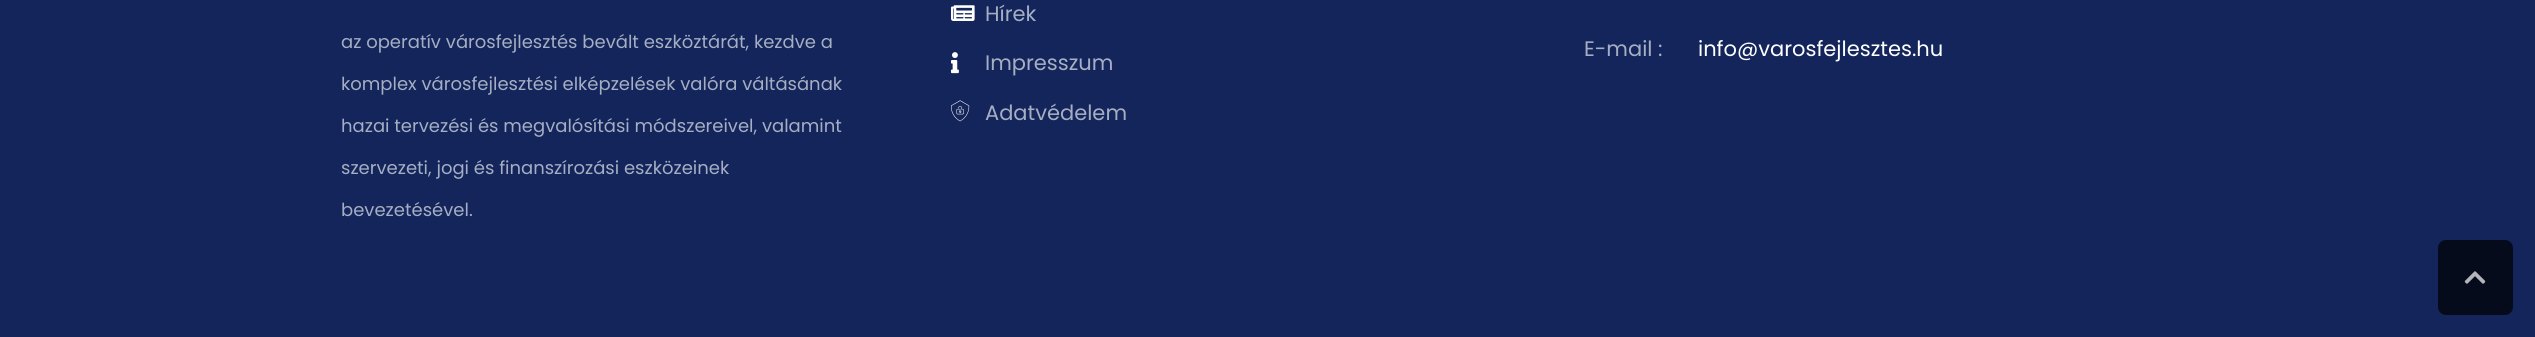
import math
import cairocffi as cairo

surface = cairo.ImageSurface(cairo.FORMAT_RGB24, 2535, 337)
cr = cairo.Context(surface)
options = cairo.FontOptions()
options.set_hint_metrics(cairo.HINT_METRICS_OFF)
options.set_hint_style(cairo.HINT_STYLE_NONE)
cr.set_font_options(options)
cr.set_miter_limit(4)


def use_color(code):
    cr.set_source_rgb(*(v / 255 for v in bytes.fromhex(code[-6:])))


def round_rect(x, y, w, h, r):
    cr.new_sub_path()
    for i, (u, v) in enumerate([(x + w - r, y + h - r), (x + r, y + h - r), (x + r, y + r), (x + w - r, y + r)]):
        cr.arc(u, v, r, i * math.pi / 2, (i + 1) * math.pi / 2)
    cr.close_path()


def picture(path, x, y, w, h):
    cr.save()
    cr.set_source_surface(cairo.ImageSurface.create_from_png(path), x, y)
    cr.rectangle(x, y, w, h)
    cr.fill()
    cr.restore()


use_color("#13255b")
cr.paint()
cr.select_font_face("Poppins")
cr.set_font_size(18)
use_color("#a5aec2")
cr.move_to(341, 48)
cr.show_text("az operatív városfejlesztés bevált eszköztárát, kezdve a")
cr.move_to(341, 90)
cr.show_text("komplex városfejlesztési elképzelések valóra váltásának")
cr.move_to(341, 132)
cr.show_text("hazai tervezési és megvalósítási módszereivel, valamint")
cr.move_to(341, 174)
cr.show_text("szervezeti, jogi és finanszírozási eszközeinek")
cr.move_to(341, 216)
cr.show_text("bevezetésével.")
picture("img1.png", 951, 5, 24, 16)
cr.set_font_size(21)
cr.move_to(985, 21)
cr.show_text("Hírek")
picture("img2.png", 951, 52, 8, 22)
cr.move_to(985, 70)
cr.show_text("Impresszum")
picture("img3.png", 951, 100, 19, 22)
cr.move_to(985, 120)
cr.show_text("Adatvédelem")
cr.move_to(1584, 56)
cr.show_text("E-mail :")
use_color("#ffffff")
cr.move_to(1698, 56)
cr.show_text("info@varosfejlesztes.hu")
use_color("#060b1b")
round_rect(2438, 240, 75, 75, 8)
cr.fill()
picture("img4.png", 2464, 271, 22, 13)
surface.write_to_png("result.png")
